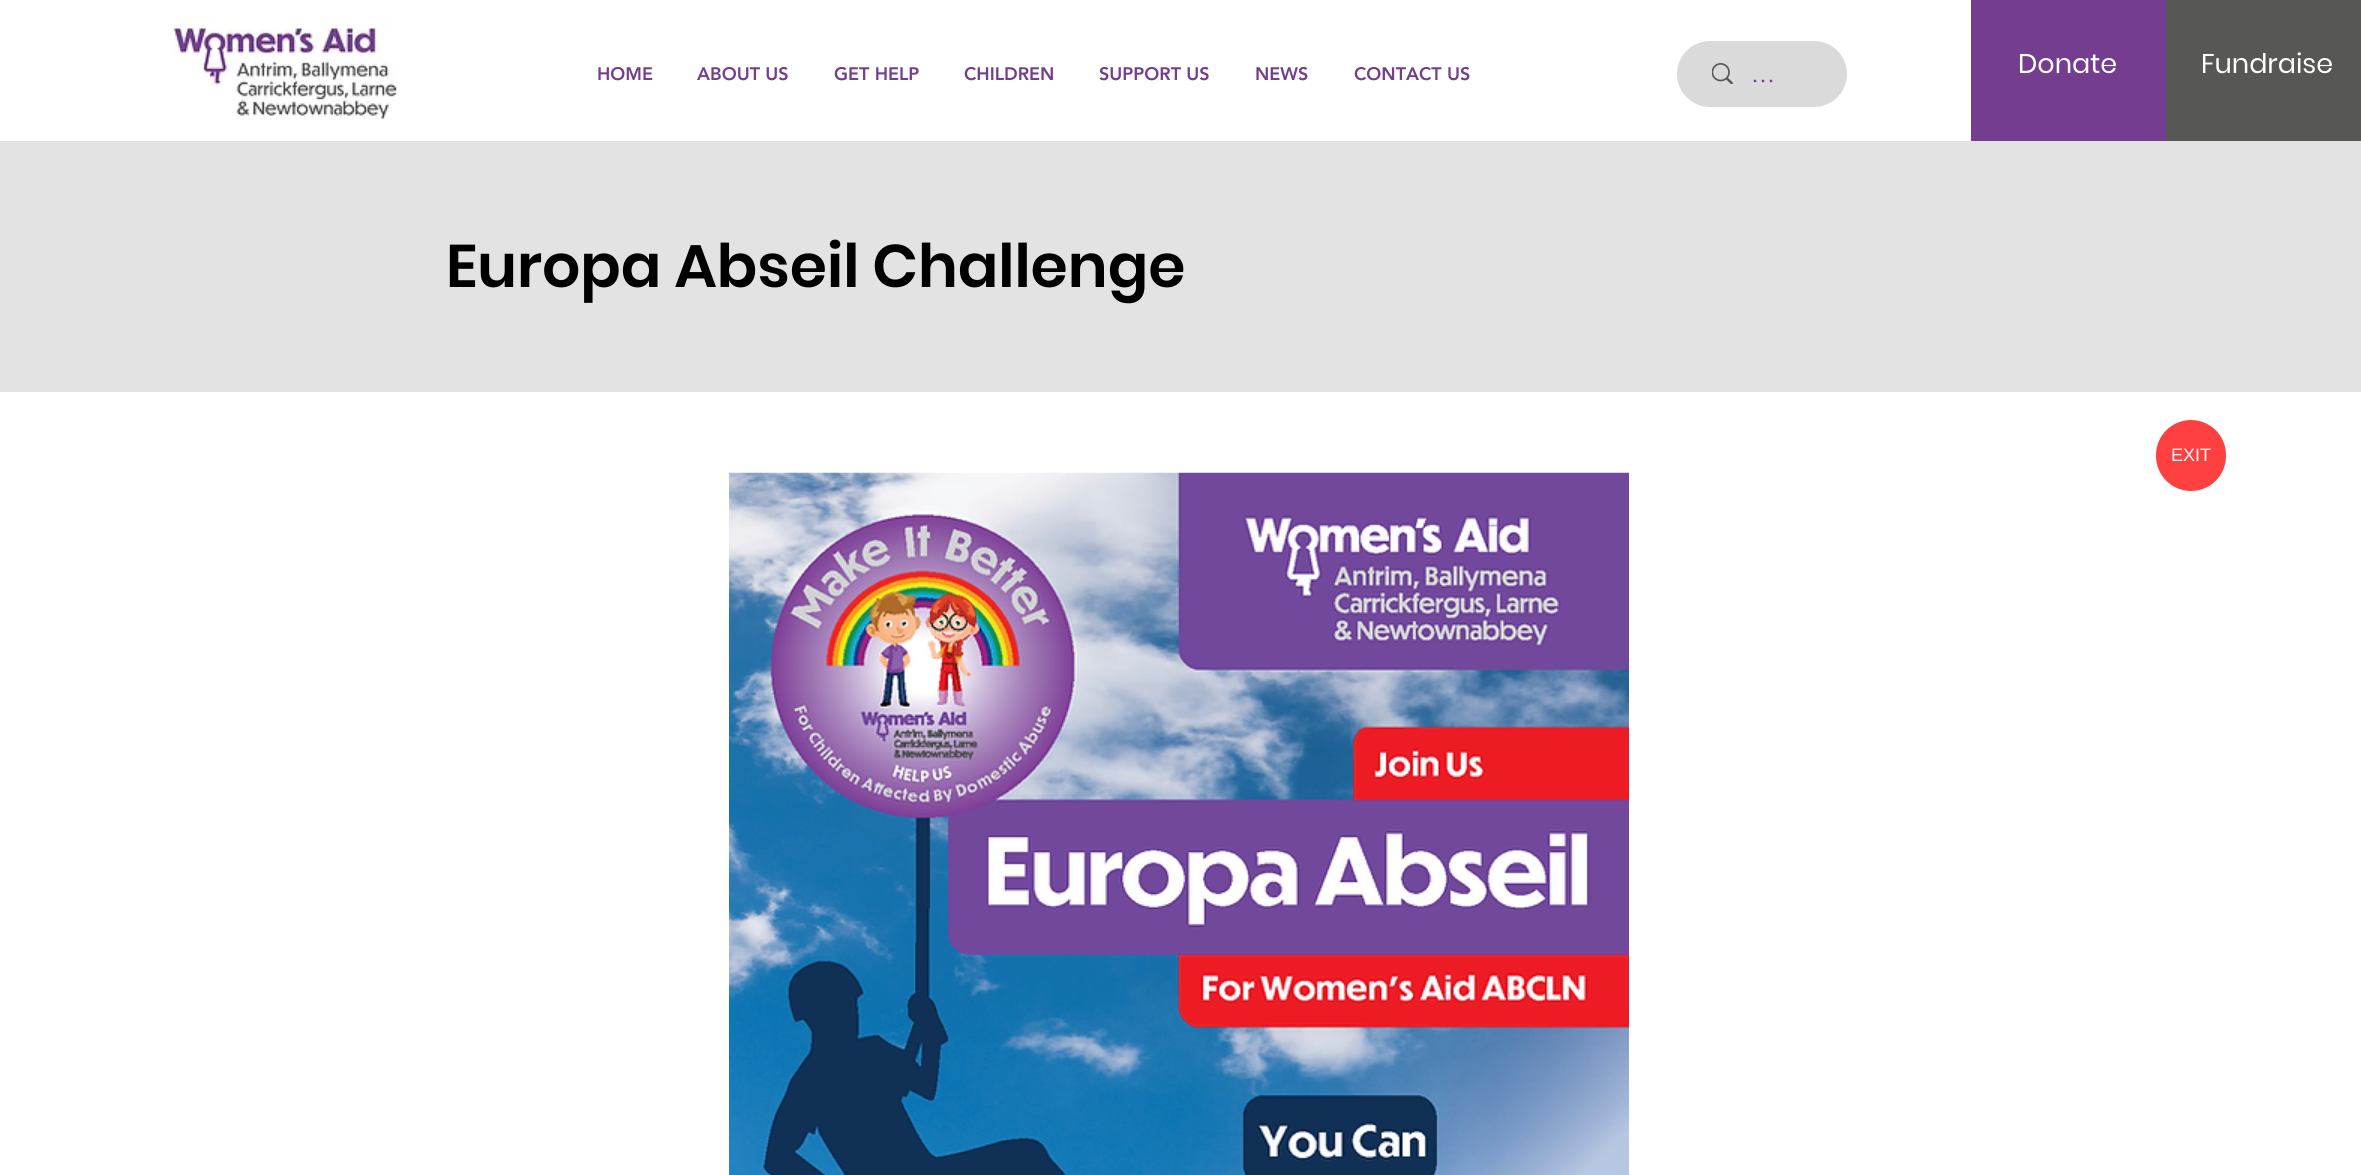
import math
import cairocffi as cairo

surface = cairo.ImageSurface(cairo.FORMAT_RGB24, 2361, 1175)
cr = cairo.Context(surface)
options = cairo.FontOptions()
options.set_hint_metrics(cairo.HINT_METRICS_OFF)
options.set_hint_style(cairo.HINT_STYLE_NONE)
cr.set_font_options(options)
cr.set_miter_limit(4)


def use_color(code):
    cr.set_source_rgb(*(v / 255 for v in bytes.fromhex(code[-6:])))


def round_rect(x, y, w, h, r):
    cr.new_sub_path()
    for i, (u, v) in enumerate([(x + w - r, y + h - r), (x + r, y + h - r), (x + r, y + r), (x + w - r, y + r)]):
        cr.arc(u, v, r, i * math.pi / 2, (i + 1) * math.pi / 2)
    cr.close_path()


def picture(path, x, y, w, h):
    cr.save()
    cr.set_source_surface(cairo.ImageSurface.create_from_png(path), x, y)
    cr.rectangle(x, y, w, h)
    cr.fill()
    cr.restore()


use_color("#ffffff")
cr.paint()
picture("img1.png", 170, 18, 227, 102)
cr.select_font_face("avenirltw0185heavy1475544 Black")
cr.set_font_size(18)
use_color("#733e8c")
cr.move_to(597, 80)
cr.show_text("HOME")
cr.move_to(697, 80)
cr.show_text("ABOUT US")
cr.move_to(834, 80)
cr.show_text("GET HELP")
cr.move_to(964, 80)
cr.show_text("CHILDREN")
cr.move_to(1099, 80)
cr.show_text("SUPPORT US")
cr.move_to(1255, 80)
cr.show_text("NEWS")
cr.move_to(1354, 80)
cr.show_text("CONTACT US")
use_color("#dadada")
round_rect(1677, 41, 170, 66, 33)
cr.fill()
picture("img2.png", 1712, 63, 21, 21)
cr.select_font_face("futura")
cr.set_font_size(24)
use_color("#733e8c")
cr.move_to(1751, 82)
cr.show_text("…")
use_color("#743d90")
cr.rectangle(1971, 0, 195, 141)
cr.fill()
cr.select_font_face("Poppins")
cr.set_font_size(27)
use_color("#ffffff")
cr.move_to(2018, 73)
cr.show_text("Donate")
use_color("#575756")
cr.rectangle(2166, 0, 195, 141)
cr.fill()
use_color("#ffffff")
cr.move_to(2201, 73)
cr.show_text("Fundraise")
use_color("#e3e3e3")
cr.rectangle(0, 141, 2361, 251)
cr.fill()
cr.select_font_face("Poppins SemiBold")
cr.set_font_size(60)
use_color("#000000")
cr.move_to(446, 287)
cr.show_text("Europa Abseil Challenge")
picture("img3.png", 729, 472, 900, 703)
use_color("#ff4040")
round_rect(2156, 420, 70, 71, 35)
cr.fill()
cr.select_font_face("Liberation Sans")
cr.set_font_size(18)
use_color("#ffffff")
cr.move_to(2171, 461)
cr.show_text("EXIT")
surface.write_to_png("result.png")
